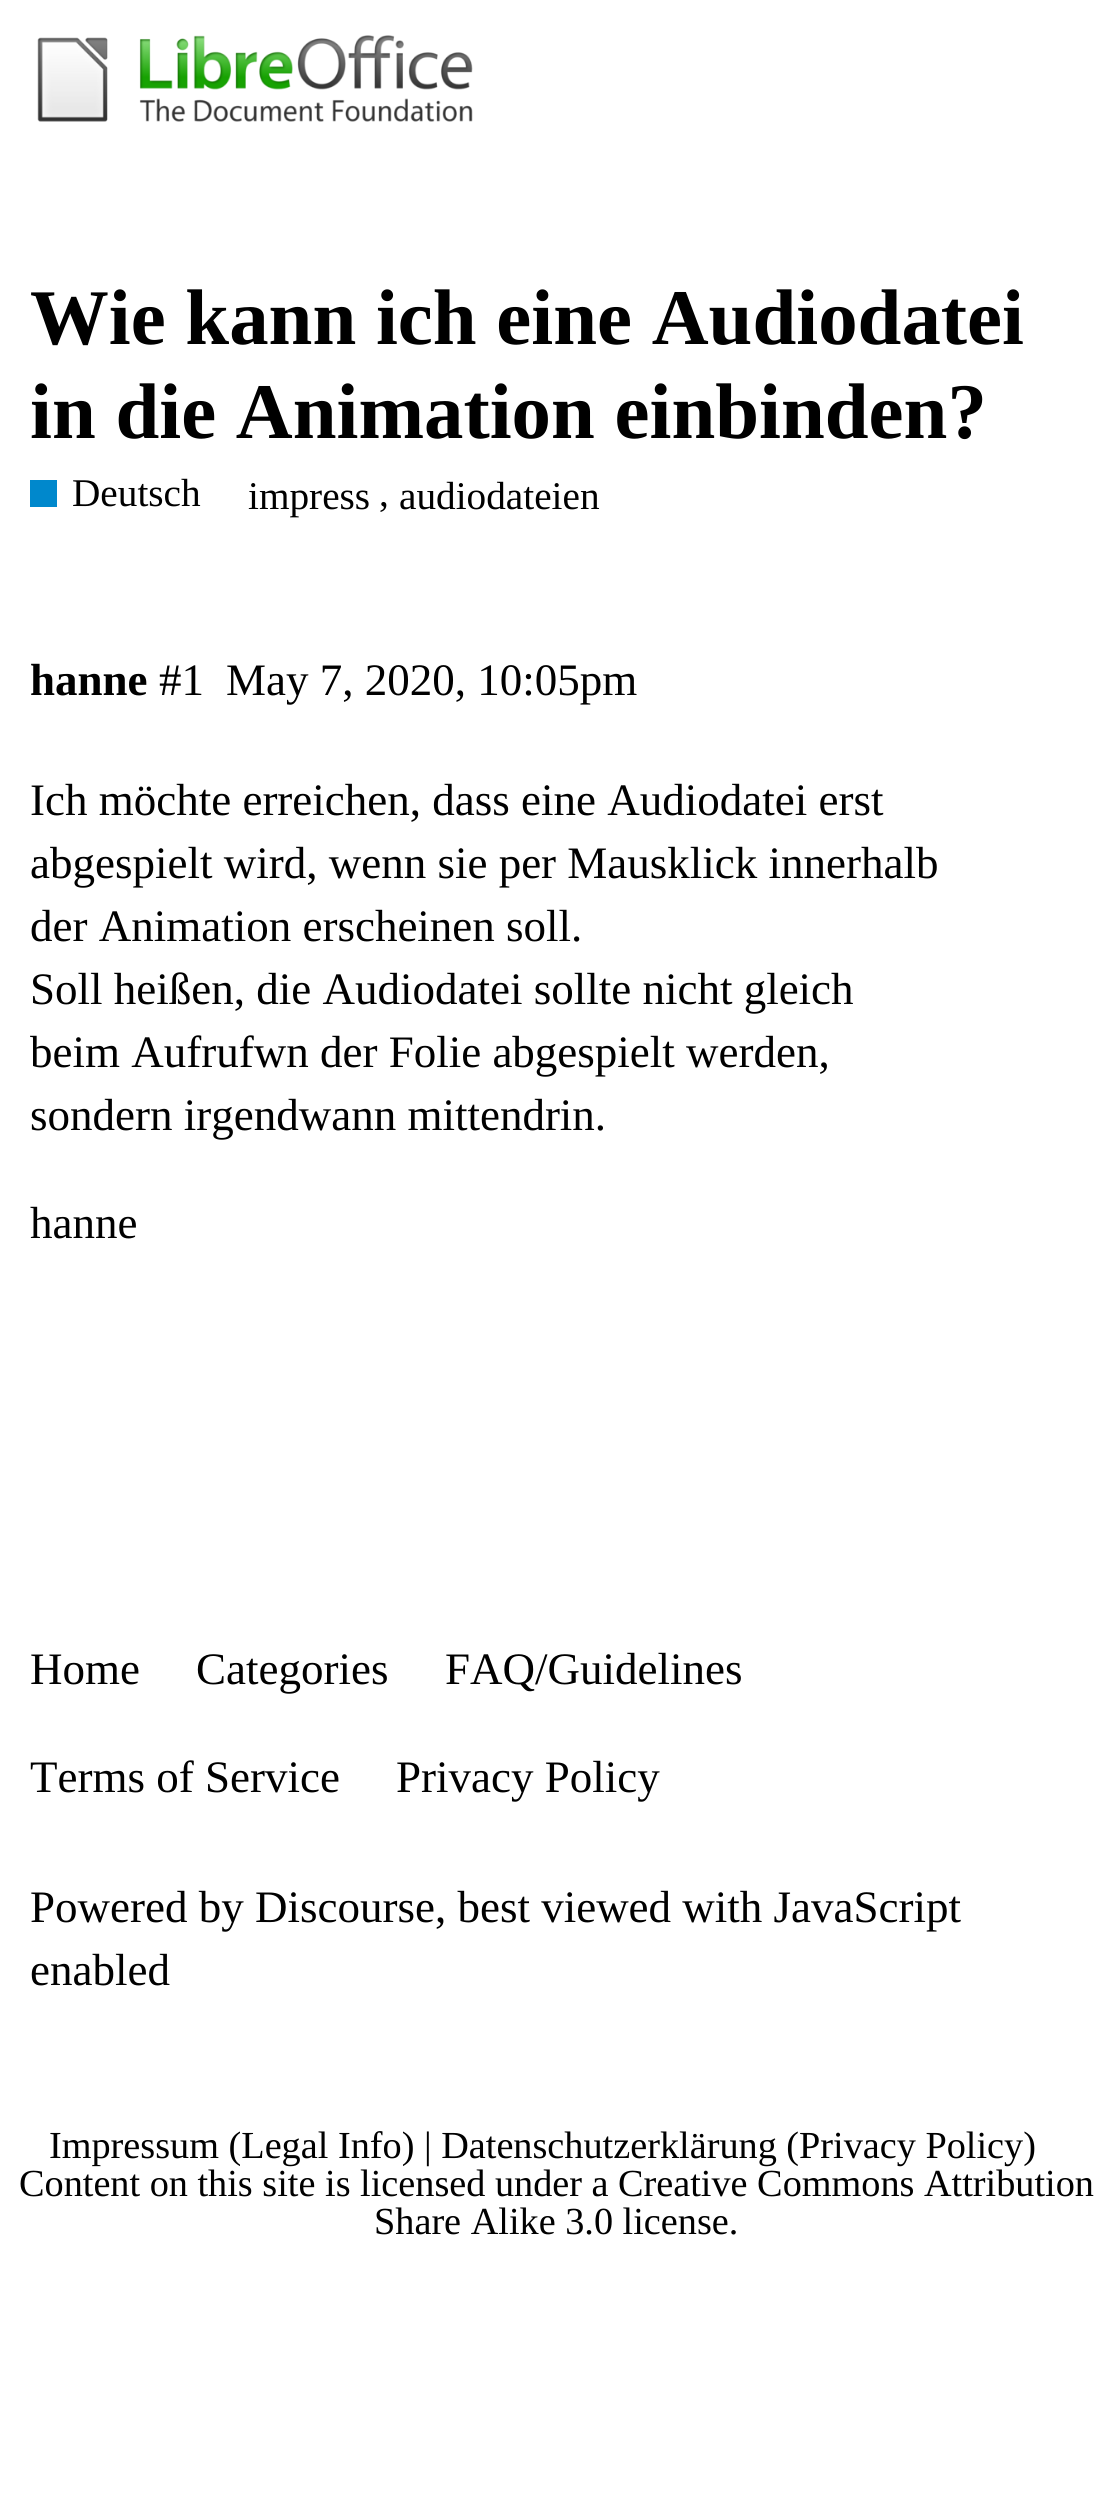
import math
import cairocffi as cairo

surface = cairo.ImageSurface(cairo.FORMAT_RGB24, 1111, 2509)
cr = cairo.Context(surface)
options = cairo.FontOptions()
options.set_hint_metrics(cairo.HINT_METRICS_OFF)
options.set_hint_style(cairo.HINT_STYLE_NONE)
cr.set_font_options(options)
cr.set_miter_limit(4)


def use_color(code):
    cr.set_source_rgb(*(v / 255 for v in bytes.fromhex(code[-6:])))


def picture(path, x, y, w, h):
    cr.save()
    cr.set_source_surface(cairo.ImageSurface.create_from_png(path), x, y)
    cr.rectangle(x, y, w, h)
    cr.fill()
    cr.restore()


use_color("#ffffff")
cr.paint()
picture("img1.png", 37, 35, 436, 87)
cr.select_font_face("Liberation Serif", cairo.FONT_SLANT_NORMAL, cairo.FONT_WEIGHT_BOLD)
cr.set_font_size(78.8)
use_color("#000000")
cr.move_to(30, 344)
cr.show_text("Wie kann ich eine Audiodatei")
cr.move_to(30, 438)
cr.show_text("in die Animation einbinden?")
use_color("#0088cc")
cr.rectangle(30, 480, 27, 27)
cr.fill()
cr.select_font_face("Liberation Serif")
cr.set_font_size(39.25)
use_color("#000000")
cr.move_to(72, 506)
cr.show_text("Deutsch")
cr.move_to(248, 509)
cr.show_text("impress")
cr.move_to(379, 506)
cr.show_text(",")
cr.move_to(399, 509)
cr.show_text("audiodateien")
cr.select_font_face("Liberation Serif", cairo.FONT_SLANT_NORMAL, cairo.FONT_WEIGHT_BOLD)
cr.set_font_size(45)
cr.move_to(30, 695)
cr.show_text("hanne")
cr.select_font_face("Liberation Serif")
cr.move_to(159, 695)
cr.show_text("#1")
cr.move_to(226, 695)
cr.show_text("May 7, 2020, 10:05pm")
cr.move_to(30, 815)
cr.show_text("Ich möchte erreichen, dass eine Audiodatei erst")
cr.move_to(30, 878)
cr.show_text("abgespielt wird, wenn sie per Mausklick innerhalb")
cr.move_to(30, 941)
cr.show_text("der Animation erscheinen soll.")
cr.move_to(30, 1004)
cr.show_text("Soll heißen, die Audiodatei sollte nicht gleich")
cr.move_to(30, 1067)
cr.show_text("beim Aufrufwn der Folie abgespielt werden,")
cr.move_to(30, 1130)
cr.show_text("sondern irgendwann mittendrin.")
cr.move_to(30, 1238)
cr.show_text("hanne")
cr.move_to(30, 1684)
cr.show_text("Home")
cr.move_to(196, 1684)
cr.show_text("Categories")
cr.move_to(445, 1684)
cr.show_text("FAQ/Guidelines")
cr.move_to(30, 1792)
cr.show_text("Terms of Service")
cr.move_to(396, 1792)
cr.show_text("Privacy Policy")
cr.move_to(30, 1922)
cr.show_text("Powered by Discourse, best viewed with JavaScript")
cr.move_to(30, 1985)
cr.show_text("enabled")
cr.set_font_size(38.25)
cr.move_to(49, 2158)
cr.show_text("Impressum (Legal Info) | Datenschutzerklärung (Privacy Policy)")
cr.move_to(19, 2196)
cr.show_text("Content on this site is licensed under a")
cr.move_to(618, 2196)
cr.show_text("Creative Commons Attribution")
cr.move_to(374, 2234)
cr.show_text("Share Alike 3.0 license.")
surface.write_to_png("result.png")
